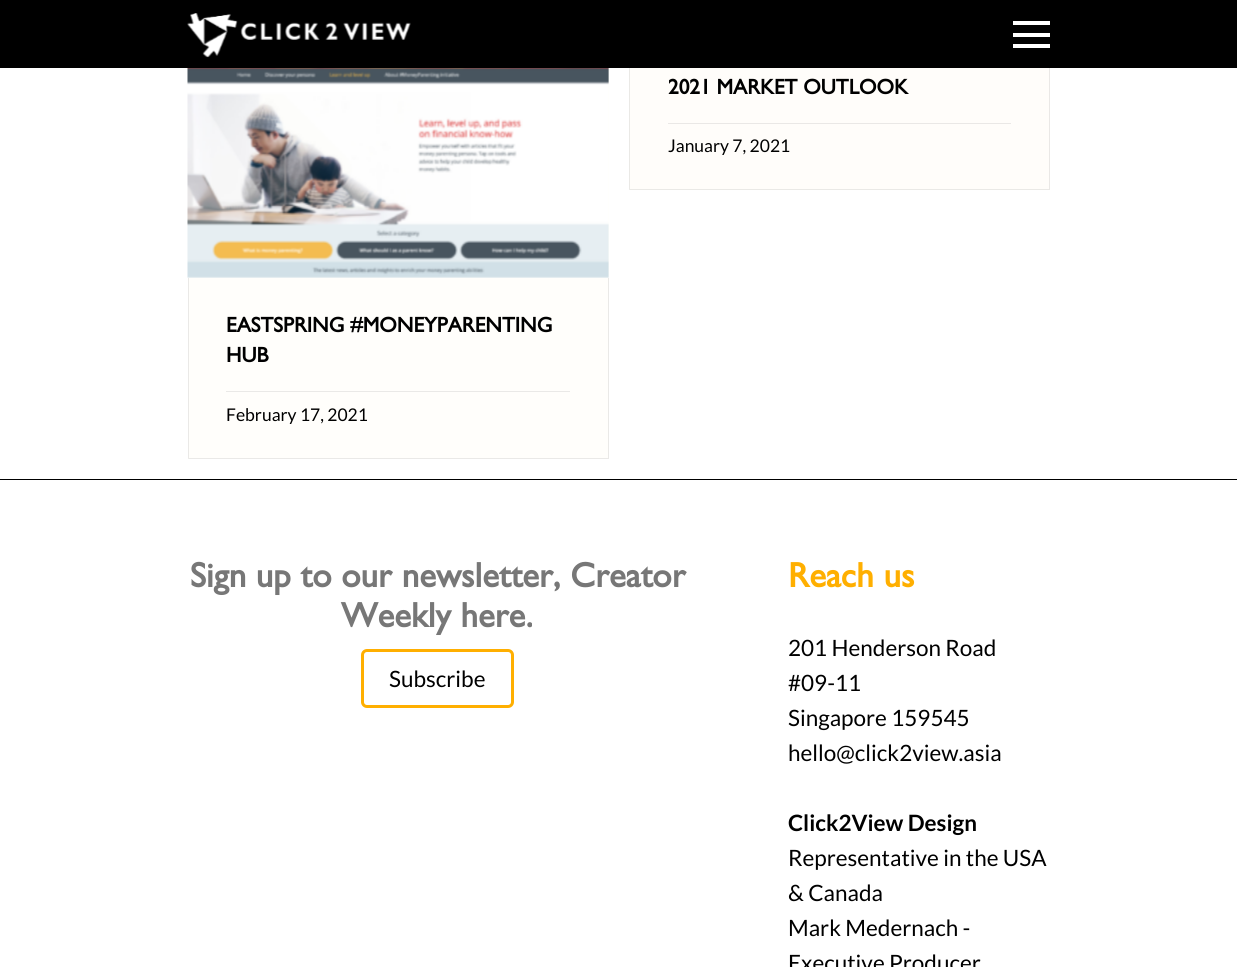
import math
import cairocffi as cairo

surface = cairo.ImageSurface(cairo.FORMAT_RGB24, 1237, 967)
cr = cairo.Context(surface)
options = cairo.FontOptions()
options.set_hint_metrics(cairo.HINT_METRICS_OFF)
options.set_hint_style(cairo.HINT_STYLE_NONE)
cr.set_font_options(options)
cr.set_miter_limit(4)


def use_color(code):
    cr.set_source_rgb(*(v / 255 for v in bytes.fromhex(code[-6:])))


def round_rect(x, y, w, h, r):
    cr.new_sub_path()
    for i, (u, v) in enumerate([(x + w - r, y + h - r), (x + r, y + h - r), (x + r, y + r), (x + w - r, y + r)]):
        cr.arc(u, v, r, i * math.pi / 2, (i + 1) * math.pi / 2)
    cr.close_path()


def picture(path, x, y, w, h):
    cr.save()
    cr.set_source_surface(cairo.ImageSurface.create_from_png(path), x, y)
    cr.rectangle(x, y, w, h)
    cr.fill()
    cr.restore()


use_color("#ffffff")
cr.paint()
use_color("#fffdfa")
cr.rectangle(629, 68, 421, 122)
cr.fill()
use_color("#eae8e6")
cr.new_path()
cr.move_to(1050, 39)
cr.line_to(1050, 190)
cr.line_to(1049, 189)
cr.line_to(1049, 39)
cr.close_path()
cr.fill()
cr.set_source_rgba(0.722, 0.722, 0.722, 0.3)
cr.new_path()
cr.move_to(1050, 190)
cr.line_to(629, 190)
cr.line_to(630, 189)
cr.line_to(1049, 189)
cr.close_path()
cr.fill()
cr.new_path()
cr.move_to(629, 190)
cr.line_to(629, 39)
cr.line_to(630, 39)
cr.line_to(630, 189)
cr.close_path()
cr.fill()
use_color("#000000")
cr.rectangle(0, 0, 1237, 68)
cr.fill()
picture("img1.png", 187, 13, 224, 45)
use_color("#ffffff")
cr.rectangle(1013, 21, 37, 4)
cr.fill()
cr.rectangle(1013, 33, 37, 4)
cr.fill()
cr.rectangle(1013, 44, 37, 4)
cr.fill()
cr.select_font_face("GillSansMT", cairo.FONT_SLANT_NORMAL, cairo.FONT_WEIGHT_BOLD)
cr.set_font_size(21.25)
use_color("#000000")
cr.move_to(668, 94)
cr.show_text("2021 MARKET OUTLOOK")
use_color("#eae8e6")
cr.rectangle(668, 123, 343, 1)
cr.fill()
cr.select_font_face("Lato")
cr.set_font_size(17.5)
use_color("#000000")
cr.move_to(668, 152)
cr.show_text("January 7, 2021")
use_color("#fffefb")
cr.rectangle(188, 68, 421, 391)
cr.fill()
picture("img2.png", 187, 68, 422, 210)
use_color("#eae9e7")
cr.new_path()
cr.move_to(609, 278)
cr.line_to(609, 459)
cr.line_to(608, 458)
cr.line_to(608, 278)
cr.close_path()
cr.fill()
cr.set_source_rgba(0.722, 0.722, 0.722, 0.3)
cr.new_path()
cr.move_to(609, 459)
cr.line_to(188, 459)
cr.line_to(189, 458)
cr.line_to(608, 458)
cr.close_path()
cr.fill()
cr.new_path()
cr.move_to(188, 459)
cr.line_to(188, 278)
cr.line_to(189, 278)
cr.line_to(189, 458)
cr.close_path()
cr.fill()
cr.select_font_face("GillSansMT", cairo.FONT_SLANT_NORMAL, cairo.FONT_WEIGHT_BOLD)
cr.set_font_size(21.25)
use_color("#000000")
cr.move_to(226, 332)
cr.show_text("EASTSPRING #MONEYPARENTING")
cr.move_to(226, 362)
cr.show_text("HUB")
use_color("#eae9e7")
cr.rectangle(226, 391, 344, 1)
cr.fill()
cr.select_font_face("Lato")
cr.set_font_size(17.5)
use_color("#000000")
cr.move_to(226, 421)
cr.show_text("February 17, 2021")
cr.rectangle(0, 479, 1237, 1)
cr.fill()
cr.select_font_face("GillSansMT", cairo.FONT_SLANT_NORMAL, cairo.FONT_WEIGHT_BOLD)
cr.set_font_size(35)
use_color("#777777")
cr.move_to(190, 587)
cr.show_text("Sign up to our newsletter, Creator")
cr.move_to(341, 627)
cr.show_text("Weekly here.")
round_rect(362.5, 650.5, 150, 56, 4.5)
use_color("#ffaf00")
cr.set_line_width(3)
cr.stroke()
cr.select_font_face("Lato")
cr.set_font_size(22.5)
use_color("#000000")
cr.move_to(389, 687)
cr.show_text("Subscribe")
cr.select_font_face("GillSansMT", cairo.FONT_SLANT_NORMAL, cairo.FONT_WEIGHT_BOLD)
cr.set_font_size(35)
use_color("#ffaf00")
cr.move_to(788, 587)
cr.show_text("Reach us")
cr.select_font_face("Lato")
cr.set_font_size(22.5)
use_color("#000000")
cr.move_to(788, 656)
cr.show_text("201 Henderson Road")
cr.move_to(788, 691)
cr.show_text("#09-11")
cr.move_to(788, 726)
cr.show_text("Singapore 159545")
cr.move_to(788, 761)
cr.show_text("hello@click2view.asia")
cr.select_font_face("Lato", cairo.FONT_SLANT_NORMAL, cairo.FONT_WEIGHT_BOLD)
cr.move_to(788, 831)
cr.show_text("Click2View Design")
cr.select_font_face("Lato")
cr.move_to(788, 866)
cr.show_text("Representative in the USA")
cr.move_to(788, 901)
cr.show_text("& Canada")
cr.move_to(788, 936)
cr.show_text("Mark Medernach -")
cr.move_to(788, 971)
cr.show_text("Executive Producer")
surface.write_to_png("result.png")
